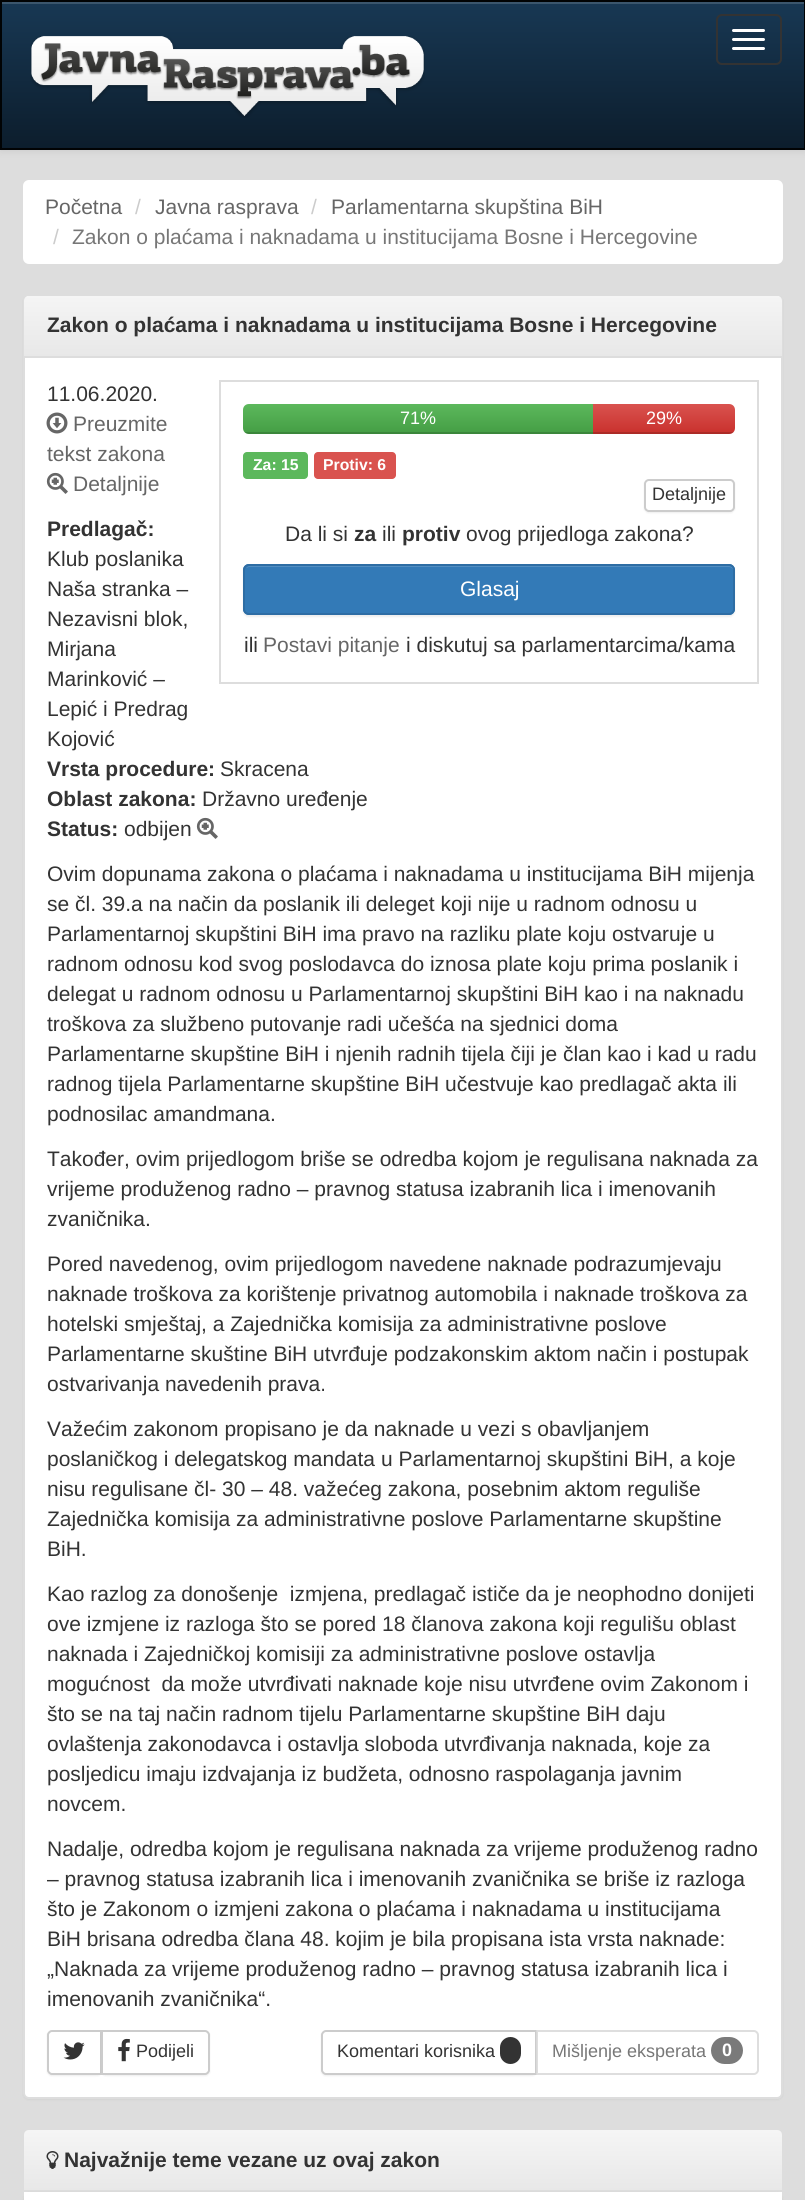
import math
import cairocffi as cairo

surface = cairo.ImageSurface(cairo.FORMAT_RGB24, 805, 2200)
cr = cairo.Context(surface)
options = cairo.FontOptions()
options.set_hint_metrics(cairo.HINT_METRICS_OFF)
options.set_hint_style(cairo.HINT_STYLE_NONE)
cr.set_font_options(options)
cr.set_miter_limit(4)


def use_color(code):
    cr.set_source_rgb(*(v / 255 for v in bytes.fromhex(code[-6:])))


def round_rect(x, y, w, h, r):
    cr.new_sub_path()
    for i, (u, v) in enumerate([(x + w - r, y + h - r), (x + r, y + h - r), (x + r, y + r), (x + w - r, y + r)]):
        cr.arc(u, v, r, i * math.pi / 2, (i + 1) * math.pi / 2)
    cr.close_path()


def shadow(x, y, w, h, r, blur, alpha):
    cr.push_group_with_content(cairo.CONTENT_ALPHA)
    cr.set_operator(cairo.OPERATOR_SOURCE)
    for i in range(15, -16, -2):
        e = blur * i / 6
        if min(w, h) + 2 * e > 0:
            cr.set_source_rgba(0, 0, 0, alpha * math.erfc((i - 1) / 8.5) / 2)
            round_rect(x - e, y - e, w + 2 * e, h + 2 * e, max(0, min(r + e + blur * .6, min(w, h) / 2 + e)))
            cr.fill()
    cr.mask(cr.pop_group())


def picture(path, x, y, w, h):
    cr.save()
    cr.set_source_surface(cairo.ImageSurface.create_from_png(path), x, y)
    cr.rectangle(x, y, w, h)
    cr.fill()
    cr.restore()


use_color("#dddddd")
cr.paint()
use_color("#000000")
shadow(0, 2, 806, 150, 0, 4, 0.07)
gradient = cairo.LinearGradient(403, 1.5, 403, 149)
gradient.add_color_stop_rgba(0, 0.094, 0.22, 0.329, 1)
gradient.add_color_stop_rgba(1, 0.047, 0.114, 0.173, 1)
cr.set_source(gradient)
cr.rectangle(2, 4, 802, 144)
cr.fill()
use_color("#3b566d")
cr.rectangle(2, 2, 802, 2)
cr.fill()
cr.rectangle(1, 1, 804, 148)
use_color("#010304")
cr.stroke()
picture("img1.png", 30, 36, 395, 82)
round_rect(717, 15, 64, 49, 5)
use_color("#333333")
cr.stroke()
use_color("#ffffff")
round_rect(732, 29, 33, 3, 1.5)
cr.fill()
round_rect(732, 38, 33, 3, 1.5)
cr.fill()
round_rect(732, 47, 33, 3, 1.5)
cr.fill()
round_rect(23, 180, 760, 84, 6)
cr.fill()
cr.select_font_face("Liberation Sans")
cr.set_font_size(21)
use_color("#666666")
cr.move_to(45, 214)
cr.show_text("Početna")
use_color("#cccccc")
cr.move_to(135, 214)
cr.show_text("/")
use_color("#666666")
cr.move_to(155, 214)
cr.show_text("Javna rasprava")
use_color("#cccccc")
cr.move_to(311, 214)
cr.show_text("/")
use_color("#666666")
cr.move_to(331, 214)
cr.show_text("Parlamentarna skupština BiH")
use_color("#cccccc")
cr.move_to(53, 244)
cr.show_text("/")
use_color("#777777")
cr.move_to(72, 244)
cr.show_text("Zakon o plaćama i naknadama u institucijama Bosne i Hercegovine")
use_color("#000000")
shadow(23, 296, 760, 1804, 6, 1, 0.05)
use_color("#ffffff")
round_rect(24, 295, 758, 1803, 5)
cr.fill_preserve()
use_color("#dddddd")
cr.stroke()
gradient = cairo.LinearGradient(403, 295, 403, 356)
gradient.add_color_stop_rgba(0, 0.961, 0.961, 0.961, 1)
gradient.add_color_stop_rgba(1, 0.91, 0.91, 0.91, 1)
cr.set_source(gradient)
cr.new_path()
cr.move_to(29, 296)
cr.line_to(777, 296)
cr.curve_to(780, 296, 782, 298, 782, 301)
cr.line_to(782, 356)
cr.line_to(24, 356)
cr.line_to(24, 301)
cr.curve_to(24, 298, 26, 296, 29, 296)
cr.close_path()
cr.fill()
use_color("#dddddd")
cr.rectangle(24, 356, 758, 2)
cr.fill()
cr.select_font_face("Liberation Sans", cairo.FONT_SLANT_NORMAL, cairo.FONT_WEIGHT_BOLD)
use_color("#333333")
cr.move_to(47, 332)
cr.show_text("Zakon o plaćama i naknadama u institucijama Bosne i Hercegovine")
cr.select_font_face("Liberation Sans")
cr.move_to(47, 401)
cr.show_text("11.06.2020.")
picture("img2.png", 46, 412, 22, 22)
use_color("#666666")
cr.move_to(73, 431)
cr.show_text("Preuzmite")
cr.move_to(47, 461)
cr.show_text("tekst zakona")
picture("img3.png", 46, 472, 22, 22)
cr.move_to(73, 491)
cr.show_text("Detaljnije")
cr.rectangle(220, 381, 538, 302)
use_color("#dddddd")
cr.stroke()
gradient = cairo.LinearGradient(418, 404, 418, 434)
gradient.add_color_stop_rgba(0, 0.361, 0.722, 0.361, 1)
gradient.add_color_stop_rgba(1, 0.267, 0.616, 0.267, 1)
cr.set_source(gradient)
cr.new_path()
cr.move_to(249, 404)
cr.line_to(593, 404)
cr.line_to(593, 434)
cr.line_to(249, 434)
cr.curve_to(245.5, 434, 243, 431.5, 243, 428)
cr.line_to(243, 410)
cr.curve_to(243, 406.5, 245.5, 404, 249, 404)
cr.close_path()
cr.fill()
cr.save()
round_rect(243, 404, 492, 30, 6)
cr.clip()
cr.set_source_rgba(0, 0, 0, 0.15)
cr.rectangle(243, 432, 350, 2)
cr.fill()
cr.restore()
cr.set_font_size(18)
use_color("#ffffff")
cr.move_to(400, 424)
cr.show_text("71%")
gradient = cairo.LinearGradient(664, 404, 664, 434)
gradient.add_color_stop_rgba(0, 0.851, 0.325, 0.31, 1)
gradient.add_color_stop_rgba(1, 0.788, 0.188, 0.173, 1)
cr.set_source(gradient)
cr.new_path()
cr.move_to(593, 404)
cr.line_to(729, 404)
cr.curve_to(732.5, 404, 735, 406.5, 735, 410)
cr.line_to(735, 428)
cr.curve_to(735, 431.5, 732.5, 434, 729, 434)
cr.line_to(593, 434)
cr.close_path()
cr.fill()
cr.save()
round_rect(243, 404, 492, 30, 6)
cr.clip()
cr.set_source_rgba(0, 0, 0, 0.15)
cr.rectangle(593, 432, 142, 2)
cr.fill()
cr.restore()
use_color("#ffffff")
cr.move_to(646, 424)
cr.show_text("29%")
use_color("#5cb85c")
round_rect(243, 452, 65, 27, 4)
cr.fill()
cr.select_font_face("Liberation Sans", cairo.FONT_SLANT_NORMAL, cairo.FONT_WEIGHT_BOLD)
cr.set_font_size(15.75)
use_color("#ffffff")
cr.move_to(253, 470)
cr.show_text("Za: 15")
use_color("#d9534f")
round_rect(314, 452, 82, 27, 4)
cr.fill()
use_color("#ffffff")
cr.move_to(323, 470)
cr.show_text("Protiv: 6")
use_color("#000000")
shadow(644, 480, 91, 33, 5, 1, 0.07)
use_color("#ffffff")
round_rect(645, 480, 89, 31, 4)
cr.fill_preserve()
use_color("#cccccc")
cr.stroke()
cr.select_font_face("Liberation Sans")
cr.set_font_size(18)
use_color("#333333")
cr.move_to(652, 500)
cr.show_text("Detaljnije")
cr.set_font_size(21)
cr.move_to(285, 541)
cr.show_text("Da li si")
cr.select_font_face("Liberation Sans", cairo.FONT_SLANT_NORMAL, cairo.FONT_WEIGHT_BOLD)
cr.move_to(354, 541)
cr.show_text("za")
cr.select_font_face("Liberation Sans")
cr.move_to(382, 541)
cr.show_text("ili")
cr.select_font_face("Liberation Sans", cairo.FONT_SLANT_NORMAL, cairo.FONT_WEIGHT_BOLD)
cr.move_to(402, 541)
cr.show_text("protiv")
cr.select_font_face("Liberation Sans")
cr.move_to(466, 541)
cr.show_text("ovog prijedloga zakona?")
use_color("#000000")
shadow(243, 566, 492, 51, 6, 1, 0.07)
use_color("#337ab7")
round_rect(243, 564, 492, 51, 6)
cr.fill()
use_color("#528ec2")
cr.new_path()
cr.move_to(249, 567)
cr.line_to(729, 567)
cr.curve_to(731, 567, 734, 569, 734, 572)
cr.line_to(734, 571)
cr.curve_to(734, 568, 732, 566, 729, 566)
cr.line_to(250, 566)
cr.curve_to(248, 566, 247, 567, 246, 568)
cr.close_path()
cr.fill()
round_rect(244, 565, 490, 49, 5)
use_color("#2e6da4")
cr.stroke()
use_color("#ffffff")
cr.move_to(460, 596)
cr.show_text("Glasaj")
use_color("#333333")
cr.move_to(244, 652)
cr.show_text("ili")
use_color("#666666")
cr.move_to(263, 652)
cr.show_text("Postavi pitanje")
use_color("#333333")
cr.move_to(406, 652)
cr.show_text("i diskutuj sa parlamentarcima/kama")
cr.select_font_face("Liberation Sans", cairo.FONT_SLANT_NORMAL, cairo.FONT_WEIGHT_BOLD)
cr.move_to(47, 536)
cr.show_text("Predlagač:")
cr.select_font_face("Liberation Sans")
cr.move_to(47, 566)
cr.show_text("Klub poslanika")
cr.move_to(47, 596)
cr.show_text("Naša stranka –")
cr.move_to(47, 626)
cr.show_text("Nezavisni blok,")
cr.move_to(47, 656)
cr.show_text("Mirjana")
cr.move_to(47, 686)
cr.show_text("Marinković –")
cr.move_to(47, 716)
cr.show_text("Lepić i Predrag")
cr.move_to(47, 746)
cr.show_text("Kojović")
cr.select_font_face("Liberation Sans", cairo.FONT_SLANT_NORMAL, cairo.FONT_WEIGHT_BOLD)
cr.move_to(47, 776)
cr.show_text("Vrsta procedure:")
cr.select_font_face("Liberation Sans")
cr.move_to(220, 776)
cr.show_text("Skracena")
cr.select_font_face("Liberation Sans", cairo.FONT_SLANT_NORMAL, cairo.FONT_WEIGHT_BOLD)
cr.move_to(47, 806)
cr.show_text("Oblast zakona:")
cr.select_font_face("Liberation Sans")
cr.move_to(202, 806)
cr.show_text("Državno uređenje")
cr.select_font_face("Liberation Sans", cairo.FONT_SLANT_NORMAL, cairo.FONT_WEIGHT_BOLD)
cr.move_to(47, 836)
cr.show_text("Status:")
cr.select_font_face("Liberation Sans")
cr.move_to(124, 836)
cr.show_text("odbijen")
picture("img3.png", 196, 817, 22, 22)
cr.move_to(47, 881)
cr.show_text("Ovim dopunama zakona o plaćama i naknadama u institucijama BiH mijenja")
cr.move_to(47, 911)
cr.show_text("se čl. 39.a na način da poslanik ili deleget koji nije u radnom odnosu u")
cr.move_to(47, 941)
cr.show_text("Parlamentarnoj skupštini BiH ima pravo na razliku plate koju ostvaruje u")
cr.move_to(47, 971)
cr.show_text("radnom odnosu kod svog poslodavca do iznosa plate koju prima poslanik i")
cr.move_to(47, 1001)
cr.show_text("delegat u radnom odnosu u Parlamentarnoj skupštini BiH kao i na naknadu")
cr.move_to(47, 1031)
cr.show_text("troškova za službeno putovanje radi učešća na sjednici doma")
cr.move_to(47, 1061)
cr.show_text("Parlamentarne skupštine BiH i njenih radnih tijela čiji je član kao i kad u radu")
cr.move_to(47, 1091)
cr.show_text("radnog tijela Parlamentarne skupštine BiH učestvuje kao predlagač akta ili")
cr.move_to(47, 1121)
cr.show_text("podnosilac amandmana.")
cr.move_to(47, 1166)
cr.show_text("Također, ovim prijedlogom briše se odredba kojom je regulisana naknada za")
cr.move_to(47, 1196)
cr.show_text("vrijeme produženog radno – pravnog statusa izabranih lica i imenovanih")
cr.move_to(47, 1226)
cr.show_text("zvaničnika.")
cr.move_to(47, 1271)
cr.show_text("Pored navedenog, ovim prijedlogom navedene naknade podrazumjevaju")
cr.move_to(47, 1301)
cr.show_text("naknade troškova za korištenje privatnog automobila i naknade troškova za")
cr.move_to(47, 1331)
cr.show_text("hotelski smještaj, a Zajednička komisija za administrativne poslove")
cr.move_to(47, 1361)
cr.show_text("Parlamentarne skuštine BiH utvrđuje podzakonskim aktom način i postupak")
cr.move_to(47, 1391)
cr.show_text("ostvarivanja navedenih prava.")
cr.move_to(47, 1436)
cr.show_text("Važećim zakonom propisano je da naknade u vezi s obavljanjem")
cr.move_to(47, 1466)
cr.show_text("poslaničkog i delegatskog mandata u Parlamentarnoj skupštini BiH, a koje")
cr.move_to(47, 1496)
cr.show_text("nisu regulisane čl- 30 – 48. važećeg zakona, posebnim aktom reguliše")
cr.move_to(47, 1526)
cr.show_text("Zajednička komisija za administrativne poslove Parlamentarne skupštine")
cr.move_to(47, 1556)
cr.show_text("BiH.")
cr.move_to(47, 1601)
cr.show_text("Kao razlog za donošenje  izmjena, predlagač ističe da je neophodno donijeti")
cr.move_to(47, 1631)
cr.show_text("ove izmjene iz razloga što se pored 18 članova zakona koji regulišu oblast")
cr.move_to(47, 1661)
cr.show_text("naknada i Zajedničkoj komisiji za administrativne poslove ostavlja")
cr.move_to(47, 1691)
cr.show_text("mogućnost  da može utvrđivati naknade koje nisu utvrđene ovim Zakonom i")
cr.move_to(47, 1721)
cr.show_text("što se na taj način radnom tijelu Parlamentarne skupštine BiH daju")
cr.move_to(47, 1751)
cr.show_text("ovlaštenja zakonodavca i ostavlja sloboda utvrđivanja naknada, koje za")
cr.move_to(47, 1781)
cr.show_text("posljedicu imaju izdvajanja iz budžeta, odnosno raspolaganja javnim")
cr.move_to(47, 1811)
cr.show_text("novcem.")
cr.move_to(47, 1856)
cr.show_text("Nadalje, odredba kojom je regulisana naknada za vrijeme produženog radno")
cr.move_to(47, 1886)
cr.show_text("– pravnog statusa izabranih lica i imenovanih zvaničnika se briše iz razloga")
cr.move_to(47, 1916)
cr.show_text("što je Zakonom o izmjeni zakona o plaćama i naknadama u institucijama")
cr.move_to(47, 1946)
cr.show_text("BiH brisana odredba člana 48. kojim je bila propisana ista vrsta naknade:")
cr.move_to(47, 1976)
cr.show_text("„Naknada za vrijeme produženog radno – pravnog statusa izabranih lica i")
cr.move_to(47, 2006)
cr.show_text("imenovanih zvaničnika“.")
use_color("#000000")
shadow(47, 2031, 55, 45, 5, 1, 0.07)
use_color("#ffffff")
cr.new_path()
cr.move_to(52, 2031)
cr.line_to(101, 2031)
cr.line_to(101, 2074)
cr.line_to(52, 2074)
cr.curve_to(50, 2074, 48, 2072, 48, 2070)
cr.line_to(48, 2035)
cr.curve_to(48, 2033, 50, 2031, 52, 2031)
cr.close_path()
cr.fill_preserve()
use_color("#cccccc")
cr.stroke()
picture("img4.png", 63, 2042, 22, 18)
use_color("#000000")
shadow(101, 2031, 109, 45, 5, 1, 0.07)
use_color("#ffffff")
cr.new_path()
cr.move_to(102, 2031)
cr.line_to(205, 2031)
cr.curve_to(207, 2031, 209, 2033, 209, 2035)
cr.line_to(209, 2070)
cr.curve_to(209, 2072, 207, 2074, 205, 2074)
cr.line_to(102, 2074)
cr.close_path()
cr.fill_preserve()
use_color("#cccccc")
cr.stroke()
picture("img5.png", 118, 2038, 12, 24)
cr.set_font_size(18)
use_color("#333333")
cr.move_to(136, 2057)
cr.show_text("Podijeli")
use_color("#000000")
shadow(321, 2031, 216, 45, 5, 1, 0.07)
use_color("#ffffff")
cr.new_path()
cr.move_to(326, 2031)
cr.line_to(536, 2031)
cr.line_to(536, 2074)
cr.line_to(326, 2074)
cr.curve_to(324, 2074, 322, 2072, 322, 2070)
cr.line_to(322, 2035)
cr.curve_to(322, 2033, 324, 2031, 326, 2031)
cr.close_path()
cr.fill_preserve()
use_color("#cccccc")
cr.stroke()
use_color("#333333")
cr.move_to(337, 2057)
cr.show_text("Komentari korisnika")
round_rect(500, 2037, 21, 27, 10.5)
cr.fill()
cr.set_source_rgba(1, 1, 1, 0.65)
cr.new_path()
cr.move_to(536, 2030)
cr.line_to(754, 2030)
cr.curve_to(757, 2030, 759, 2032, 759, 2035)
cr.line_to(759, 2070)
cr.curve_to(759, 2073, 757, 2075, 754, 2075)
cr.line_to(536, 2075)
cr.close_path()
cr.fill()
cr.new_path()
cr.move_to(537, 2031)
cr.line_to(754, 2031)
cr.curve_to(756, 2031, 758, 2033, 758, 2035)
cr.line_to(758, 2070)
cr.curve_to(758, 2072, 756, 2074, 754, 2074)
cr.line_to(537, 2074)
cr.close_path()
cr.set_source_rgba(0.8, 0.8, 0.8, 0.65)
cr.stroke()
use_color("#777777")
cr.move_to(552, 2057)
cr.show_text("Mišljenje eksperata")
use_color("#7a7a7a")
round_rect(711, 2037, 32, 27, 13.5)
cr.fill()
cr.select_font_face("Liberation Sans", cairo.FONT_SLANT_NORMAL, cairo.FONT_WEIGHT_BOLD)
use_color("#ffffff")
cr.move_to(722, 2056)
cr.show_text("0")
gradient = cairo.LinearGradient(403, 2130, 403, 2190)
gradient.add_color_stop_rgba(0, 0.961, 0.961, 0.961, 1)
gradient.add_color_stop_rgba(1, 0.91, 0.91, 0.91, 1)
cr.set_source(gradient)
cr.new_path()
cr.move_to(29, 2130)
cr.line_to(777, 2130)
cr.curve_to(780, 2130, 782, 2132, 782, 2135)
cr.line_to(782, 2190)
cr.line_to(24, 2190)
cr.line_to(24, 2135)
cr.curve_to(24, 2132, 26, 2130, 29, 2130)
cr.close_path()
cr.fill()
picture("img6.png", 46, 2151, 13, 18)
cr.set_font_size(21)
use_color("#333333")
cr.move_to(64, 2167)
cr.show_text("Najvažnije teme vezane uz ovaj zakon")
use_color("#000000")
shadow(24, 2193, 758, 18, 6, 1.5, 0.07)
use_color("#ffffff")
cr.rectangle(24, 2192, 758, 8)
cr.fill()
surface.write_to_png("result.png")
